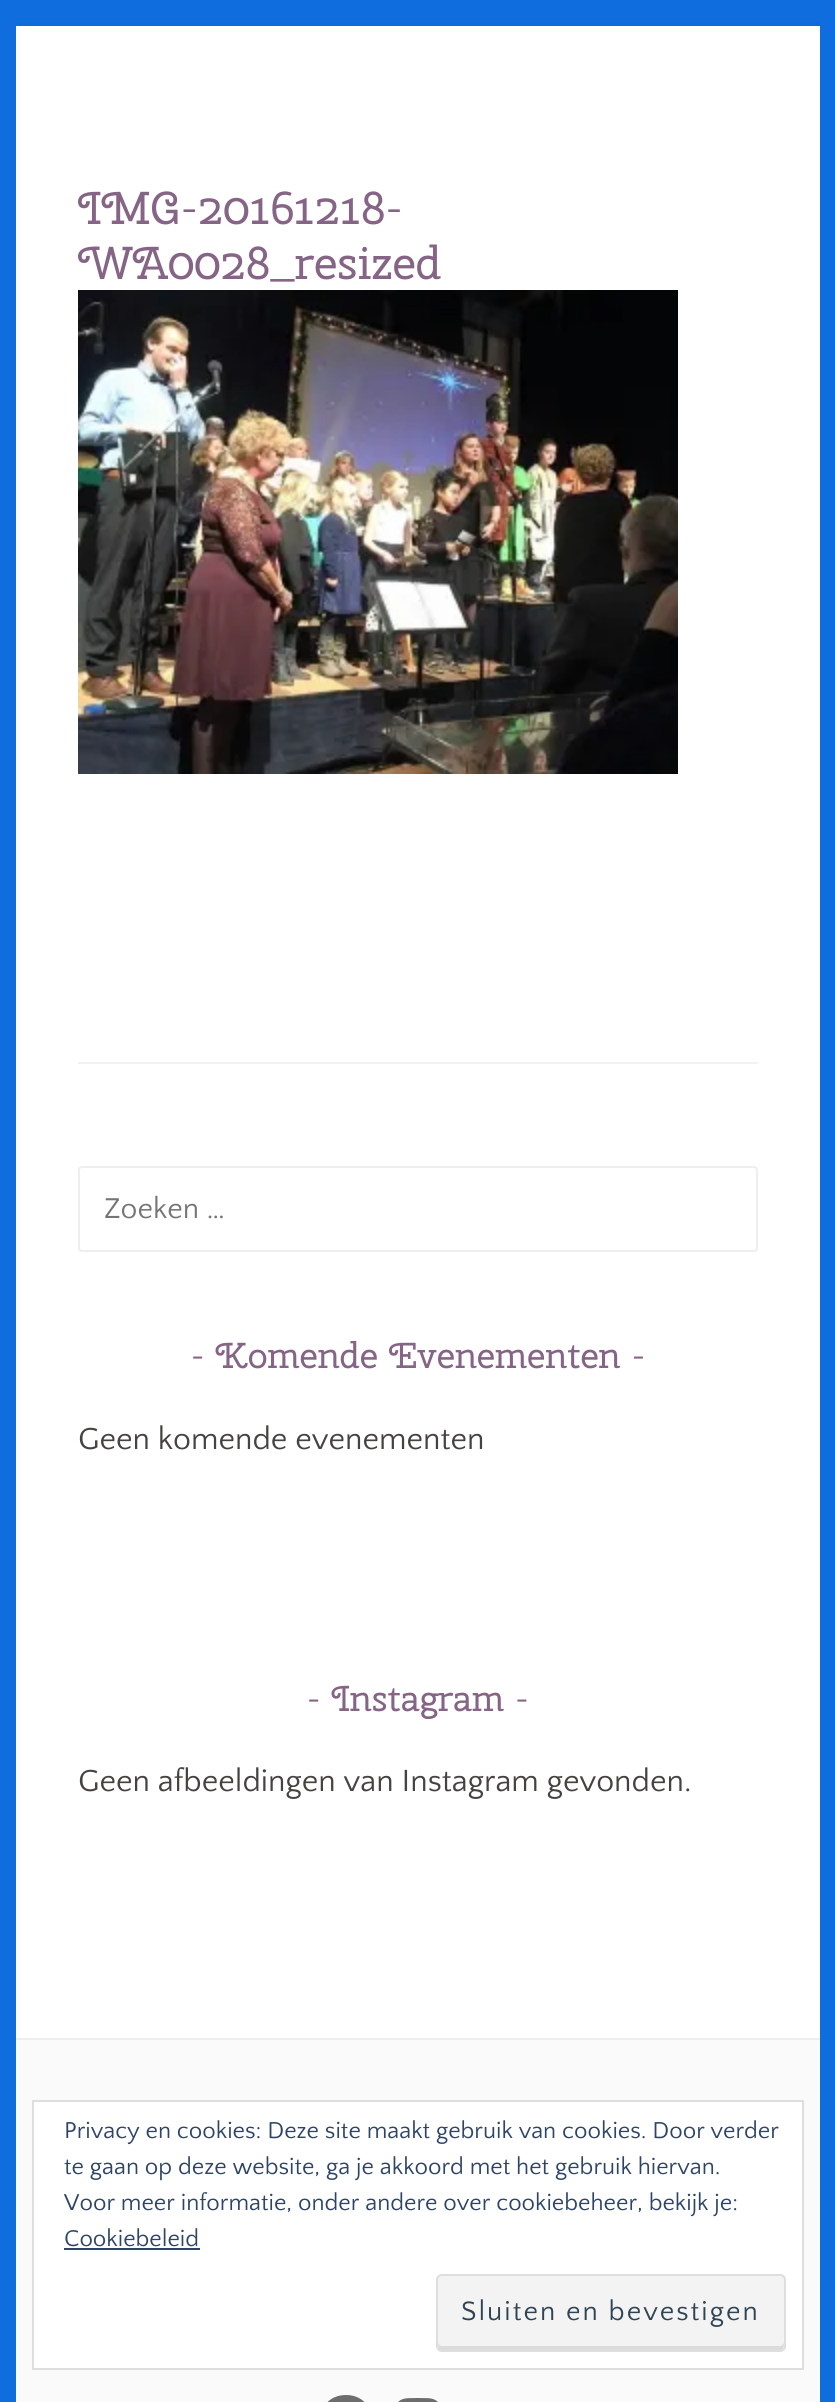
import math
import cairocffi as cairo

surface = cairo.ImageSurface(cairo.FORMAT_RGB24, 835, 2402)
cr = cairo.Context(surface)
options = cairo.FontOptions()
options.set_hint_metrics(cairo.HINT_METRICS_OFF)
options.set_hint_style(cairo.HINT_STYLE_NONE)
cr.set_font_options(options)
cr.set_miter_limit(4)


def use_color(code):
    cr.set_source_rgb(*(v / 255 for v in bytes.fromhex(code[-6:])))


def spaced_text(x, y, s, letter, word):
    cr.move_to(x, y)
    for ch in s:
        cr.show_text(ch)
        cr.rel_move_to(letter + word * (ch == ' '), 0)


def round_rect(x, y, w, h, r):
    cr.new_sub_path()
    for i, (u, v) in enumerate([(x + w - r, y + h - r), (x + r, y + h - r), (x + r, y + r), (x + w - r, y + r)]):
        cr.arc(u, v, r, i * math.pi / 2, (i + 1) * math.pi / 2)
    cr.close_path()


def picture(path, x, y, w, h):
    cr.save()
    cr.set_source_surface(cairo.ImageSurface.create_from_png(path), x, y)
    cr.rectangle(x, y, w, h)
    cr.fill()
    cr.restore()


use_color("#106dde")
cr.paint()
use_color("#106ad7")
cr.rectangle(16, 22, 804, 4)
cr.fill()
use_color("#ffffff")
cr.rectangle(16, 26, 804, 2012)
cr.fill()
cr.select_font_face("Cherry Swash")
cr.set_font_size(46)
use_color("#856485")
cr.move_to(78, 224)
cr.show_text("IMG-20161218-")
cr.move_to(78, 279)
cr.show_text("WA0028_resized")
picture("img1.png", 78, 290, 600, 484)
use_color("#f2f2f2")
cr.rectangle(78, 1062, 680, 2)
cr.fill()
round_rect(79, 1167, 678, 84, 3)
use_color("#eeeeee")
cr.stroke()
cr.select_font_face("Quattrocento Sans")
cr.set_font_size(30)
use_color("#757575")
cr.move_to(104, 1218)
cr.show_text("Zoeken …")
cr.select_font_face("Cherry Swash")
cr.set_font_size(36)
use_color("#856485")
cr.move_to(191, 1368)
cr.show_text("- Komende Evenementen -")
cr.select_font_face("Quattrocento Sans")
cr.set_font_size(32)
use_color("#444340")
cr.move_to(78, 1449)
cr.show_text("Geen komende evenementen")
cr.select_font_face("Cherry Swash")
cr.set_font_size(36)
use_color("#856485")
cr.move_to(307, 1711)
cr.show_text("- Instagram -")
cr.select_font_face("Quattrocento Sans")
cr.set_font_size(32)
use_color("#444340")
cr.move_to(78, 1791)
cr.show_text("Geen afbeeldingen van Instagram gevonden.")
use_color("#fafafa")
cr.rectangle(16, 2040, 804, 362)
cr.fill()
use_color("#eeeeee")
cr.rectangle(16, 2038, 804, 2)
cr.fill()
use_color("#6d6d6d")
cr.new_path()
cr.move_to(346, 2395)
cr.curve_to(313, 2395, 310, 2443, 342, 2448)
cr.line_to(342, 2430)
cr.line_to(335, 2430)
cr.line_to(335, 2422)
cr.line_to(342, 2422)
cr.curve_to(342, 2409, 344, 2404, 358, 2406)
cr.line_to(358, 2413)
cr.curve_to(350, 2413, 350, 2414, 350, 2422)
cr.line_to(357, 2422)
cr.line_to(356, 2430)
cr.line_to(350, 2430)
cr.line_to(350, 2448)
cr.curve_to(382, 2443, 379, 2395, 346, 2395)
cr.close_path()
cr.fill()
picture("img2.png", 398, 2398, 40, 4)
use_color("#ffffff")
cr.rectangle(33, 2101, 770, 268)
cr.fill_preserve()
use_color("#dedede")
cr.stroke()
cr.set_font_size(24)
use_color("#2e4467")
cr.move_to(64, 2138)
cr.show_text("Privacy en cookies: Deze site maakt gebruik van cookies. Door verder")
cr.move_to(64, 2174)
cr.show_text("te gaan op deze website, ga je akkoord met het gebruik hiervan.")
cr.move_to(64, 2210)
cr.show_text("Voor meer informatie, onder andere over cookiebeheer, bekijk je:")
cr.move_to(64, 2246)
cr.show_text("Cookiebeleid")
cr.rectangle(64, 2248, 136, 2)
cr.fill()
use_color("#f3f3f3")
round_rect(436, 2274, 350, 78, 6)
cr.fill()
use_color("#dbdbdb")
cr.new_path()
cr.move_to(438, 2342)
cr.curve_to(438, 2345, 438, 2350, 442, 2350)
cr.line_to(780, 2350)
cr.curve_to(784, 2350, 784, 2345, 784, 2342)
cr.curve_to(784, 2344, 782, 2346, 780, 2346)
cr.line_to(442, 2346)
cr.curve_to(440, 2346, 438, 2344, 438, 2342)
cr.close_path()
cr.fill()
round_rect(437, 2275, 348, 76, 5)
use_color("#dedede")
cr.stroke()
cr.set_font_size(28)
use_color("#2e4453")
spaced_text(461, 2320, "Sluiten en bevestigen", 2, 0)
surface.write_to_png("result.png")
